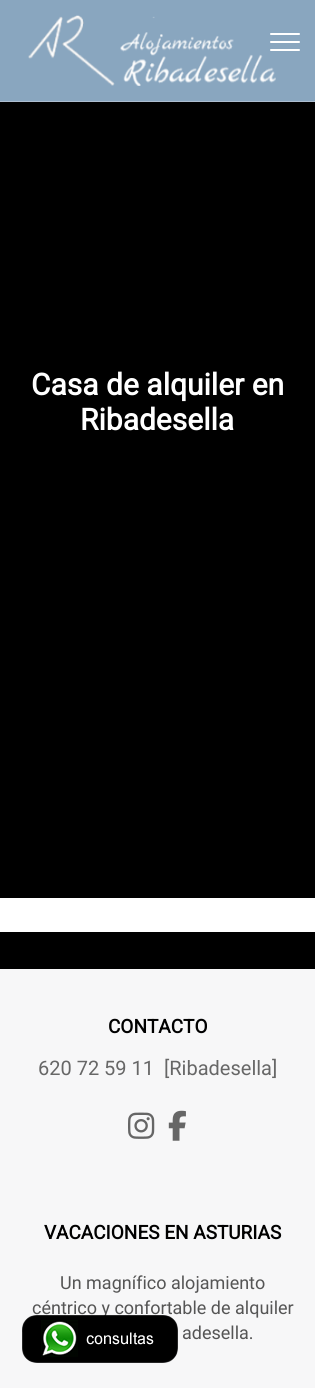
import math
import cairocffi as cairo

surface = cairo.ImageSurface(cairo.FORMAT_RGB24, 315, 1388)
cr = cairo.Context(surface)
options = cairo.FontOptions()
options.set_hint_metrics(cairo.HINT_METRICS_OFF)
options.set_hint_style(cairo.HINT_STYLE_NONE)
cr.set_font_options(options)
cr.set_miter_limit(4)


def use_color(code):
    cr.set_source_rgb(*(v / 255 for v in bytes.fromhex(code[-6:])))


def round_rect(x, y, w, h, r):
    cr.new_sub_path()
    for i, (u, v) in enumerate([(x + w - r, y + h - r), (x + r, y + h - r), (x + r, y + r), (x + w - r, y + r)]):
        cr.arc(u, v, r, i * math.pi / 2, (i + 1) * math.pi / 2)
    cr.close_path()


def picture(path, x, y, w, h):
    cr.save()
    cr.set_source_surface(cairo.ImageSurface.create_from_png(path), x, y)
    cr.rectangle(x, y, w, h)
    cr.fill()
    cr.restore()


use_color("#000000")
cr.paint()
use_color("#89a6bf")
cr.rectangle(0, 0, 315, 101)
cr.fill()
use_color("#adbecf")
cr.rectangle(0, 101, 315, 1)
cr.fill()
picture("img1.png", 28, 15, 248, 71)
use_color("#ffffff")
round_rect(270, 33, 30, 2, 1)
cr.fill()
round_rect(270, 41, 30, 2, 1)
cr.fill()
round_rect(270, 49, 30, 2, 1)
cr.fill()
cr.select_font_face("Roboto", cairo.FONT_SLANT_NORMAL, cairo.FONT_WEIGHT_BOLD)
cr.set_font_size(30)
cr.move_to(31, 395)
cr.show_text("Casa de alquiler en")
cr.move_to(80, 430)
cr.show_text("Ribadesella")
cr.rectangle(0, 898, 315, 34)
cr.fill()
use_color("#f7f7f8")
cr.rectangle(0, 969, 315, 419)
cr.fill()
cr.set_font_size(19)
use_color("#000000")
cr.move_to(108, 1033)
cr.show_text("CONTACTO")
cr.select_font_face("Roboto")
cr.set_font_size(20)
use_color("#676767")
cr.move_to(38, 1075)
cr.show_text("620 72 59 11  [Ribadesella]")
picture("img2.png", 128, 1112, 27, 27)
picture("img3.png", 168, 1110, 18, 31)
cr.select_font_face("Roboto", cairo.FONT_SLANT_NORMAL, cairo.FONT_WEIGHT_BOLD)
cr.set_font_size(19)
use_color("#000000")
cr.move_to(44, 1239)
cr.show_text("VACACIONES EN ASTURIAS")
cr.select_font_face("Roboto")
cr.set_font_size(18)
use_color("#555555")
cr.move_to(60, 1289)
cr.show_text("Un magnífico alojamiento")
cr.move_to(32, 1314)
cr.show_text("céntrico y confortable de alquiler")
cr.move_to(182, 1339)
cr.show_text("adesella.")
picture("img4.png", 22, 1315, 156, 48)
surface.write_to_png("result.png")
